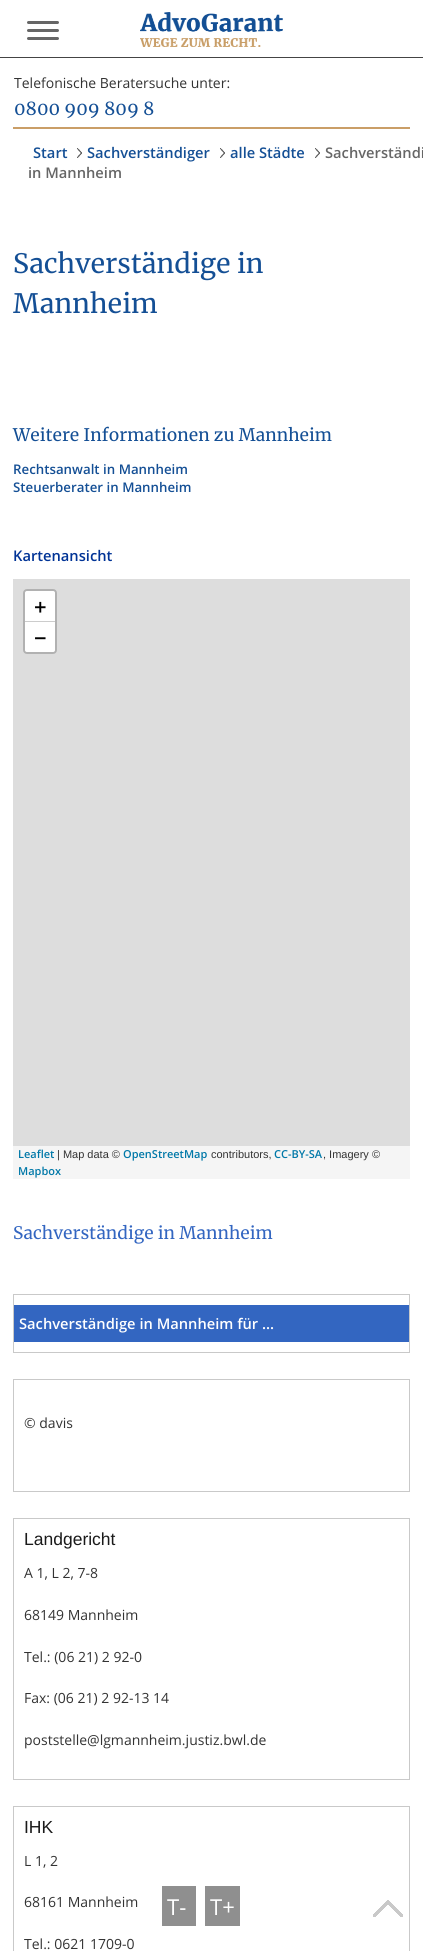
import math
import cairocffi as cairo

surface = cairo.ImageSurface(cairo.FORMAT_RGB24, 423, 1951)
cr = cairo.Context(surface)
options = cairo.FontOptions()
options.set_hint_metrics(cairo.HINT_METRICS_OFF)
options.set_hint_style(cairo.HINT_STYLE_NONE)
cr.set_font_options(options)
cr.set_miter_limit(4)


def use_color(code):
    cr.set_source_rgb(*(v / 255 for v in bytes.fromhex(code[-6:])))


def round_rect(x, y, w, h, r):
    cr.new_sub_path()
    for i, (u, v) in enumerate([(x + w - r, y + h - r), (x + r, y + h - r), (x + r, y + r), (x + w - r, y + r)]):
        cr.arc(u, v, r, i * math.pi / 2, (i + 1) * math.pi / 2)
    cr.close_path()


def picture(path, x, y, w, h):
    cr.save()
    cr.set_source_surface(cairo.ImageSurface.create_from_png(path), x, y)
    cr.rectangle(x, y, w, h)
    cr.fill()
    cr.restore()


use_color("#ffffff")
cr.paint()
use_color("#666666")
round_rect(27, 21, 32, 3, 1.5)
cr.fill()
round_rect(27, 29, 32, 3, 1.5)
cr.fill()
round_rect(27, 37, 32, 3, 1.5)
cr.fill()
use_color("#444444")
cr.rectangle(0, 57, 423, 1)
cr.fill()
picture("img1.png", 140, 12, 143, 35)
cr.select_font_face("Open Sans")
cr.set_font_size(14)
use_color("#333333")
cr.move_to(14, 88)
cr.show_text("Telefonische Beratersuche unter:")
cr.select_font_face("Merriweather")
cr.set_font_size(18)
use_color("#144f95")
cr.move_to(14, 115)
cr.show_text("0800 909 809 8")
use_color("#ca9e67")
cr.rectangle(13, 127, 397, 2)
cr.fill()
cr.select_font_face("Open Sans SemiBold")
cr.set_font_size(14.7)
use_color("#144f95")
cr.move_to(33, 158)
cr.show_text("Start")
picture("img2.png", 77, 148, 5, 10)
cr.move_to(87, 158)
cr.show_text("Sachverständiger")
picture("img2.png", 220, 148, 5, 10)
cr.move_to(230, 158)
cr.show_text("alle Städte")
picture("img2.png", 315, 148, 5, 10)
use_color("#666666")
cr.move_to(325, 158)
cr.show_text("Sachverständi")
cr.move_to(28, 178)
cr.show_text("in Mannheim")
cr.select_font_face("Merriweather")
cr.set_font_size(26.75)
use_color("#144f95")
cr.move_to(13, 273)
cr.show_text("Sachverständige in")
cr.move_to(13, 313)
cr.show_text("Mannheim")
cr.set_font_size(17.3)
cr.move_to(13, 441)
cr.show_text("Weitere Informationen zu Mannheim")
cr.select_font_face("Open Sans SemiBold")
cr.set_font_size(13.3)
cr.move_to(13, 474)
cr.show_text("Rechtsanwalt in Mannheim")
cr.move_to(13, 492)
cr.show_text("Steuerberater in Mannheim")
cr.set_font_size(14.7)
use_color("#003396")
cr.move_to(13, 561)
cr.show_text("Kartenansicht")
use_color("#dddddd")
cr.rectangle(13, 579, 397, 567)
cr.fill()
round_rect(24, 590, 32, 63, 3)
use_color("#b1b1b1")
cr.stroke()
use_color("#ffffff")
cr.new_path()
cr.move_to(27, 591)
cr.line_to(53, 591)
cr.curve_to(54, 591, 55, 592, 55, 593)
cr.line_to(55, 622)
cr.line_to(25, 622)
cr.line_to(25, 593)
cr.curve_to(25, 592, 26, 591, 27, 591)
cr.close_path()
cr.fill()
use_color("#cccccc")
cr.rectangle(25, 621, 30, 1)
cr.fill()
cr.set_font_size(22)
use_color("#000000")
cr.move_to(34, 615)
cr.show_text("+")
use_color("#ffffff")
cr.new_path()
cr.move_to(25, 622)
cr.line_to(55, 622)
cr.line_to(55, 650)
cr.curve_to(55, 651, 54, 652, 53, 652)
cr.line_to(27, 652)
cr.curve_to(26, 652, 25, 651, 25, 650)
cr.close_path()
cr.fill()
use_color("#000000")
cr.move_to(34, 646)
cr.show_text("−")
use_color("#f5f5f5")
cr.rectangle(13, 1146, 397, 33)
cr.fill()
cr.set_font_size(11)
use_color("#0078a8")
cr.move_to(18, 1158)
cr.show_text("Leaflet")
cr.select_font_face("Liberation Sans")
use_color("#333333")
cr.move_to(57, 1158)
cr.show_text("| Map data ©")
cr.select_font_face("Open Sans SemiBold")
use_color("#0078a8")
cr.move_to(123, 1158)
cr.show_text("OpenStreetMap")
cr.select_font_face("Liberation Sans")
use_color("#333333")
cr.move_to(211, 1158)
cr.show_text("contributors,")
cr.select_font_face("Open Sans SemiBold")
use_color("#0078a8")
cr.move_to(274, 1158)
cr.show_text("CC-BY-SA")
cr.select_font_face("Liberation Sans")
use_color("#333333")
cr.move_to(323, 1158)
cr.show_text(", Imagery ©")
cr.select_font_face("Open Sans SemiBold")
use_color("#0078a8")
cr.move_to(18, 1175)
cr.show_text("Mapbox")
cr.select_font_face("Merriweather")
cr.set_font_size(17.3)
use_color("#3366c1")
cr.move_to(13, 1239)
cr.show_text("Sachverständige in Mannheim")
cr.rectangle(13.5, 1294.5, 396, 58)
use_color("#c9c9c9")
cr.set_line_width(1)
cr.stroke()
use_color("#3366c1")
cr.rectangle(14, 1305, 395, 37)
cr.fill()
cr.select_font_face("Open Sans SemiBold")
cr.set_font_size(14.7)
use_color("#ffffff")
cr.move_to(19, 1329)
cr.show_text("Sachverständige in Mannheim für ...")
cr.rectangle(13.5, 1379.5, 396, 112)
use_color("#c9c9c9")
cr.stroke()
cr.select_font_face("Open Sans")
cr.set_font_size(14)
use_color("#333333")
cr.move_to(24, 1428)
cr.show_text("© davis")
cr.rectangle(13.5, 1518.5, 396, 261)
use_color("#c9c9c9")
cr.stroke()
cr.select_font_face("Liberation Sans")
cr.set_font_size(17.5)
use_color("#1a1a1a")
cr.move_to(24, 1545)
cr.show_text("Landgericht")
cr.select_font_face("Open Sans")
cr.set_font_size(14)
use_color("#333333")
cr.move_to(24, 1578)
cr.show_text("A 1, L 2, 7-8")
cr.move_to(24, 1620)
cr.show_text("68149 Mannheim")
cr.move_to(24, 1662)
cr.show_text("Tel.: (06 21) 2 92-0")
cr.move_to(24, 1703)
cr.show_text("Fax: (06 21) 2 92-13 14")
cr.move_to(24, 1745)
cr.show_text("poststelle@lgmannheim.justiz.bwl.de")
cr.rectangle(13.5, 1806.5, 396, 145)
use_color("#c9c9c9")
cr.stroke()
cr.select_font_face("Liberation Sans")
cr.set_font_size(17.5)
use_color("#1a1a1a")
cr.move_to(24, 1833)
cr.show_text("IHK")
cr.select_font_face("Open Sans")
cr.set_font_size(14)
use_color("#333333")
cr.move_to(24, 1866)
cr.show_text("L 1, 2")
cr.move_to(24, 1907)
cr.show_text("68161 Mannheim")
cr.move_to(24, 1949)
cr.show_text("Tel.: 0621 1709-0")
use_color("#8f8f8f")
cr.rectangle(162, 1886, 34, 40)
cr.fill()
cr.set_font_size(22)
use_color("#ffffff")
cr.move_to(167, 1915)
cr.show_text("T-")
use_color("#8f8f8f")
cr.rectangle(205, 1886, 35, 40)
cr.fill()
use_color("#ffffff")
cr.move_to(210, 1915)
cr.show_text("T+")
picture("img3.png", 373, 1900, 30, 17)
surface.write_to_png("result.png")
